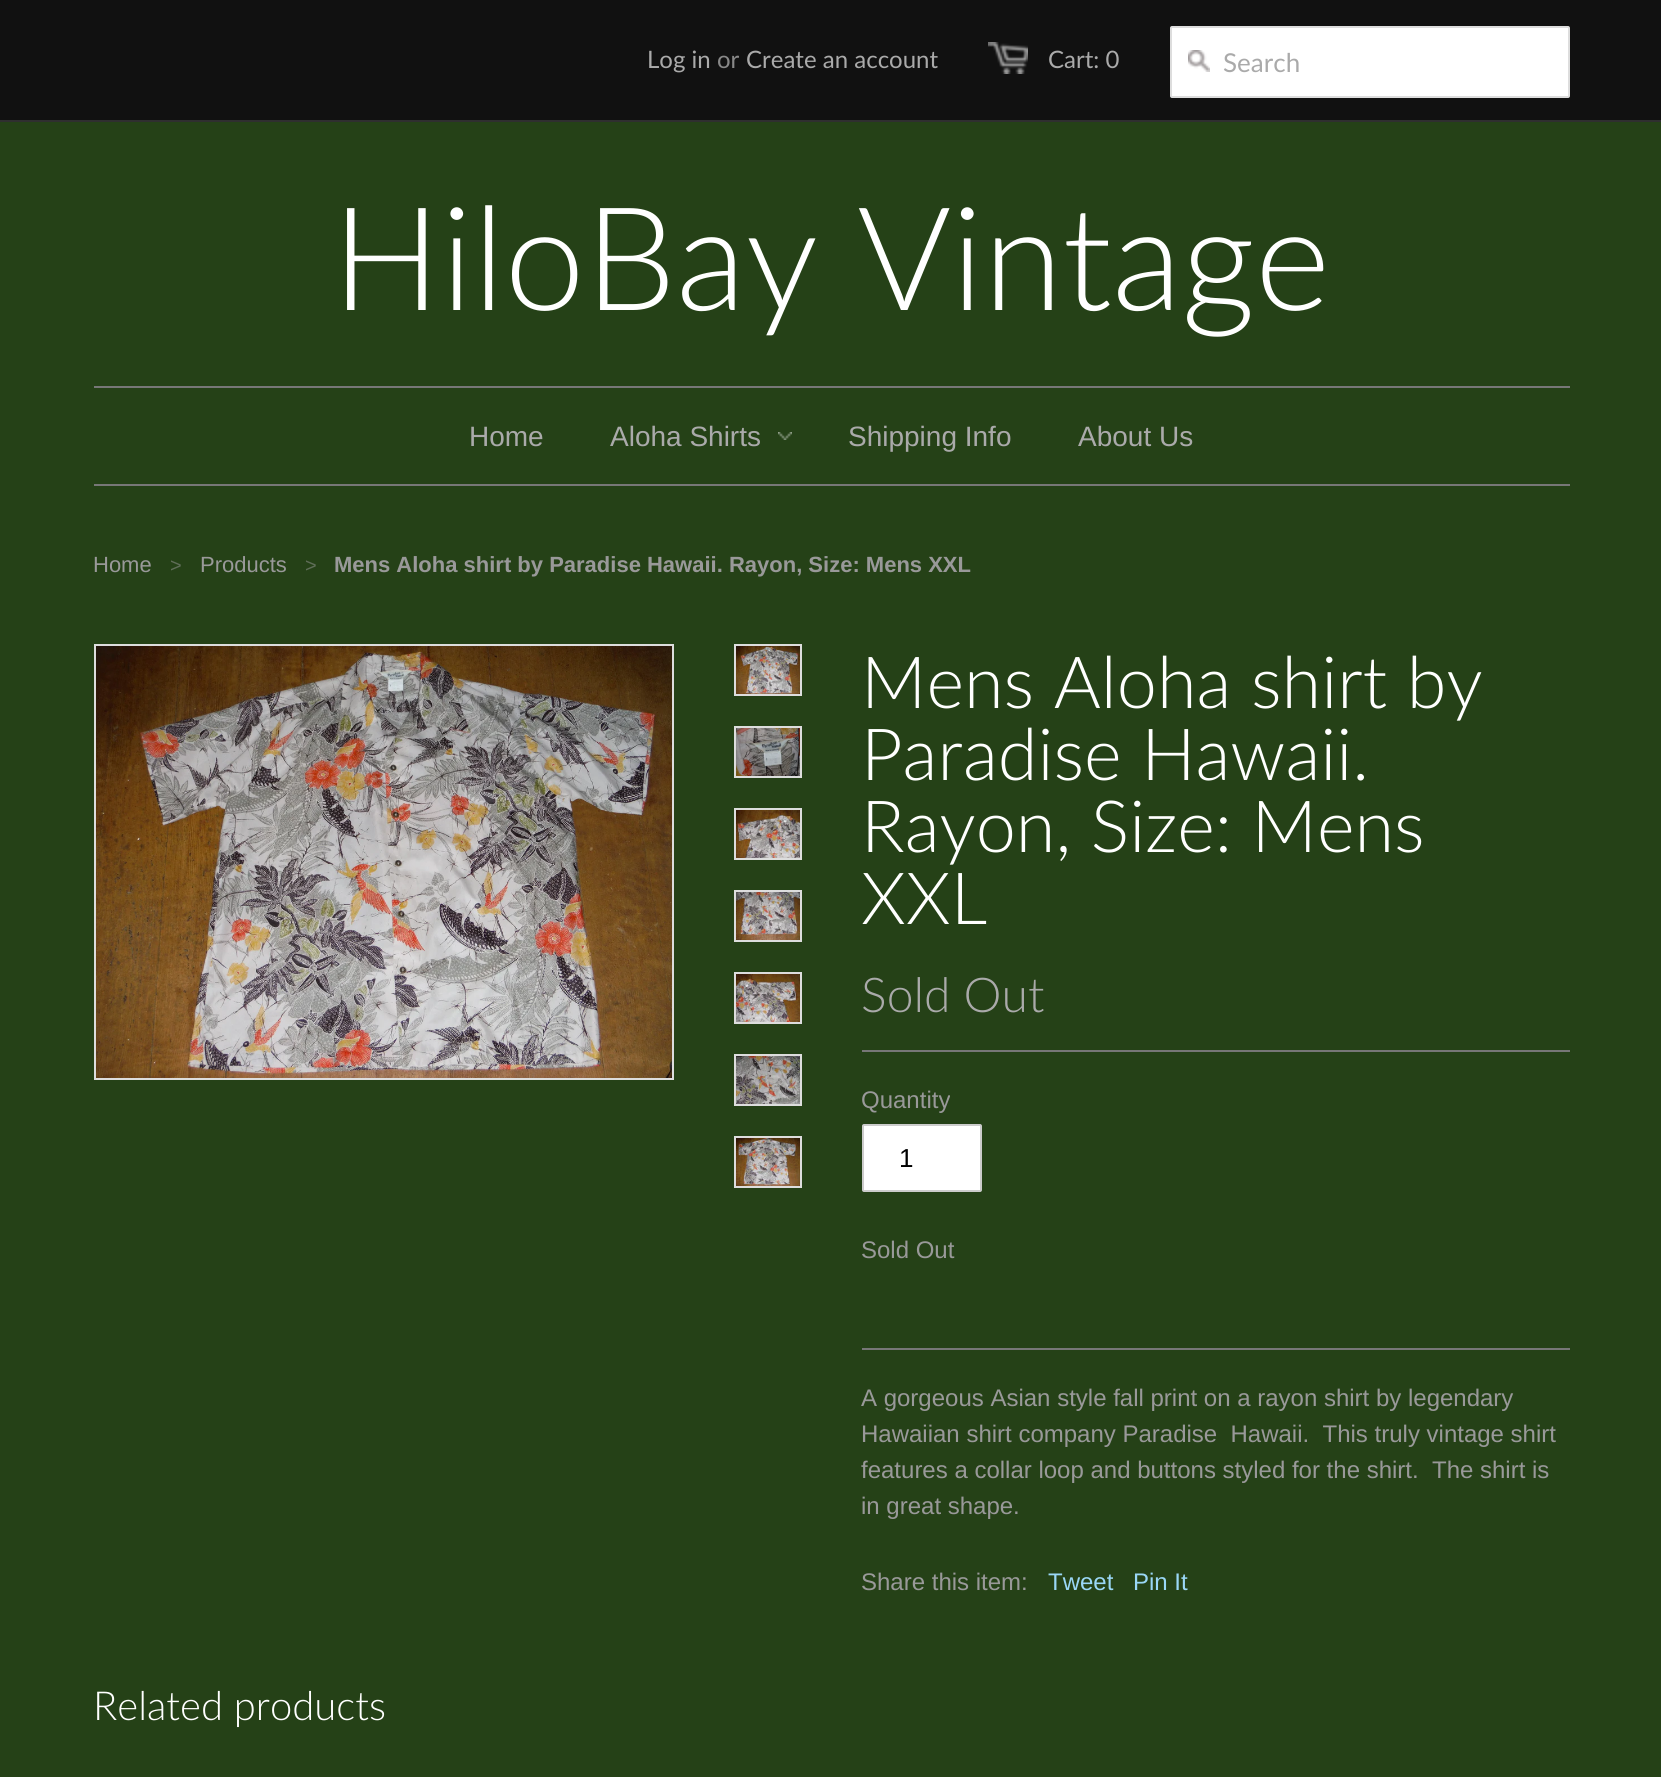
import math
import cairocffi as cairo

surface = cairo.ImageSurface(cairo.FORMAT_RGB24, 1661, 1777)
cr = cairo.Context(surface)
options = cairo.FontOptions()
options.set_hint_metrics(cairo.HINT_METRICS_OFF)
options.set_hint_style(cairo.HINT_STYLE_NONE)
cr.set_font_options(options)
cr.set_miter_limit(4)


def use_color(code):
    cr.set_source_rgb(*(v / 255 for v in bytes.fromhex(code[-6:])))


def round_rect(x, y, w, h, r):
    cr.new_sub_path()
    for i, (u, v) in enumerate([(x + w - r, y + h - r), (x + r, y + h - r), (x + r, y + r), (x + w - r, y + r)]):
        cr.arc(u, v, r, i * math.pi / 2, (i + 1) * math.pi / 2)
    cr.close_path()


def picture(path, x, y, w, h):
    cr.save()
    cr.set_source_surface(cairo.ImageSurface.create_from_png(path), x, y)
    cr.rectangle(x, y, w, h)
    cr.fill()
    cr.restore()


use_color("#254117")
cr.paint()
use_color("#111111")
cr.rectangle(0, 0, 1661, 120)
cr.fill()
use_color("#2f2f2f")
cr.rectangle(0, 120, 1661, 2)
cr.fill()
cr.select_font_face("Lato")
cr.set_font_size(24)
use_color("#aaaaaa")
cr.move_to(647, 68)
cr.show_text("Log in")
use_color("#888888")
cr.move_to(717, 68)
cr.show_text("or")
use_color("#aaaaaa")
cr.move_to(746, 68)
cr.show_text("Create an account")
picture("img1.png", 988, 42, 40, 32)
cr.move_to(1048, 68)
cr.show_text("Cart: 0")
use_color("#ffffff")
round_rect(1171, 27, 398, 70, 1)
cr.fill_preserve()
use_color("#dddddd")
cr.stroke()
picture("img2.png", 1188, 50, 22, 22)
cr.set_font_size(26)
use_color("#aaaaaa")
cr.move_to(1223, 72)
cr.show_text("Search")
cr.select_font_face("Lato Light")
cr.set_font_size(144)
use_color("#ffffff")
cr.move_to(332, 310)
cr.show_text("HiloBay Vintage")
use_color("#777777")
cr.rectangle(94, 386, 1476, 2)
cr.fill()
cr.rectangle(94, 484, 1476, 2)
cr.fill()
cr.select_font_face("Liberation Sans")
cr.set_font_size(28)
use_color("#aaaaaa")
cr.move_to(469, 446)
cr.show_text("Home")
picture("img3.png", 778, 432, 14, 8)
cr.move_to(610, 446)
cr.show_text("Aloha Shirts")
cr.move_to(848, 446)
cr.show_text("Shipping Info")
cr.move_to(1078, 446)
cr.show_text("About Us")
cr.set_font_size(22)
use_color("#999999")
cr.move_to(93, 572)
cr.show_text("Home")
cr.set_font_size(20)
use_color("#5f6d58")
cr.move_to(170, 572)
cr.show_text(">")
cr.set_font_size(22)
use_color("#999999")
cr.move_to(200, 572)
cr.show_text("Products")
cr.set_font_size(20)
use_color("#5f6d58")
cr.move_to(305, 572)
cr.show_text(">")
cr.select_font_face("Liberation Sans", cairo.FONT_SLANT_NORMAL, cairo.FONT_WEIGHT_BOLD)
cr.set_font_size(22)
use_color("#999999")
cr.move_to(334, 572)
cr.show_text("Mens Aloha shirt by Paradise Hawaii. Rayon, Size: Mens XXL")
cr.rectangle(95, 645, 578, 434)
use_color("#dddddd")
cr.stroke()
picture("img4.png", 96, 646, 576, 432)
cr.rectangle(735, 645, 66, 50)
cr.stroke()
picture("img5.png", 736, 646, 64, 48)
cr.rectangle(735, 727, 66, 50)
cr.stroke()
picture("img6.png", 736, 728, 64, 48)
cr.rectangle(735, 809, 66, 50)
cr.stroke()
picture("img7.png", 736, 810, 64, 48)
cr.rectangle(735, 891, 66, 50)
cr.stroke()
picture("img8.png", 736, 892, 64, 48)
cr.rectangle(735, 973, 66, 50)
cr.stroke()
picture("img9.png", 736, 974, 64, 48)
cr.rectangle(735, 1055, 66, 50)
cr.stroke()
picture("img10.png", 736, 1056, 64, 48)
cr.rectangle(735, 1137, 66, 50)
cr.stroke()
picture("img11.png", 736, 1138, 64, 48)
cr.select_font_face("Lato Light")
cr.set_font_size(72)
use_color("#ffffff")
cr.move_to(861, 708)
cr.show_text("Mens Aloha shirt by")
cr.move_to(861, 780)
cr.show_text("Paradise Hawaii.")
cr.move_to(861, 852)
cr.show_text("Rayon, Size: Mens")
cr.move_to(861, 924)
cr.show_text("XXL")
cr.set_font_size(48)
use_color("#aaaaaa")
cr.move_to(861, 1012)
cr.show_text("Sold Out")
use_color("#777777")
cr.rectangle(862, 1050, 708, 2)
cr.fill()
cr.rectangle(862, 1348, 708, 2)
cr.fill()
cr.select_font_face("Liberation Sans")
cr.set_font_size(24)
use_color("#999999")
cr.move_to(861, 1108)
cr.show_text("Quantity")
use_color("#ffffff")
round_rect(863, 1125, 118, 66, 1)
cr.fill_preserve()
use_color("#cccccc")
cr.stroke()
cr.set_font_size(26)
use_color("#000000")
cr.move_to(899, 1167)
cr.show_text("1")
cr.set_font_size(24)
use_color("#999999")
cr.move_to(861, 1258)
cr.show_text("Sold Out")
cr.move_to(861, 1406)
cr.show_text("A gorgeous Asian style fall print on a rayon shirt by legendary")
cr.move_to(861, 1442)
cr.show_text("Hawaiian shirt company Paradise  Hawaii.  This truly vintage shirt")
cr.move_to(861, 1478)
cr.show_text("features a collar loop and buttons styled for the shirt.  The shirt is")
cr.move_to(861, 1514)
cr.show_text("in great shape.")
cr.move_to(861, 1590)
cr.show_text("Share this item:")
use_color("#9ad7f6")
cr.move_to(1048, 1590)
cr.show_text("Tweet")
cr.move_to(1133, 1590)
cr.show_text("Pin It")
cr.select_font_face("Lato Light")
cr.set_font_size(40)
use_color("#ffffff")
cr.move_to(93, 1720)
cr.show_text("Related products")
surface.write_to_png("result.png")
